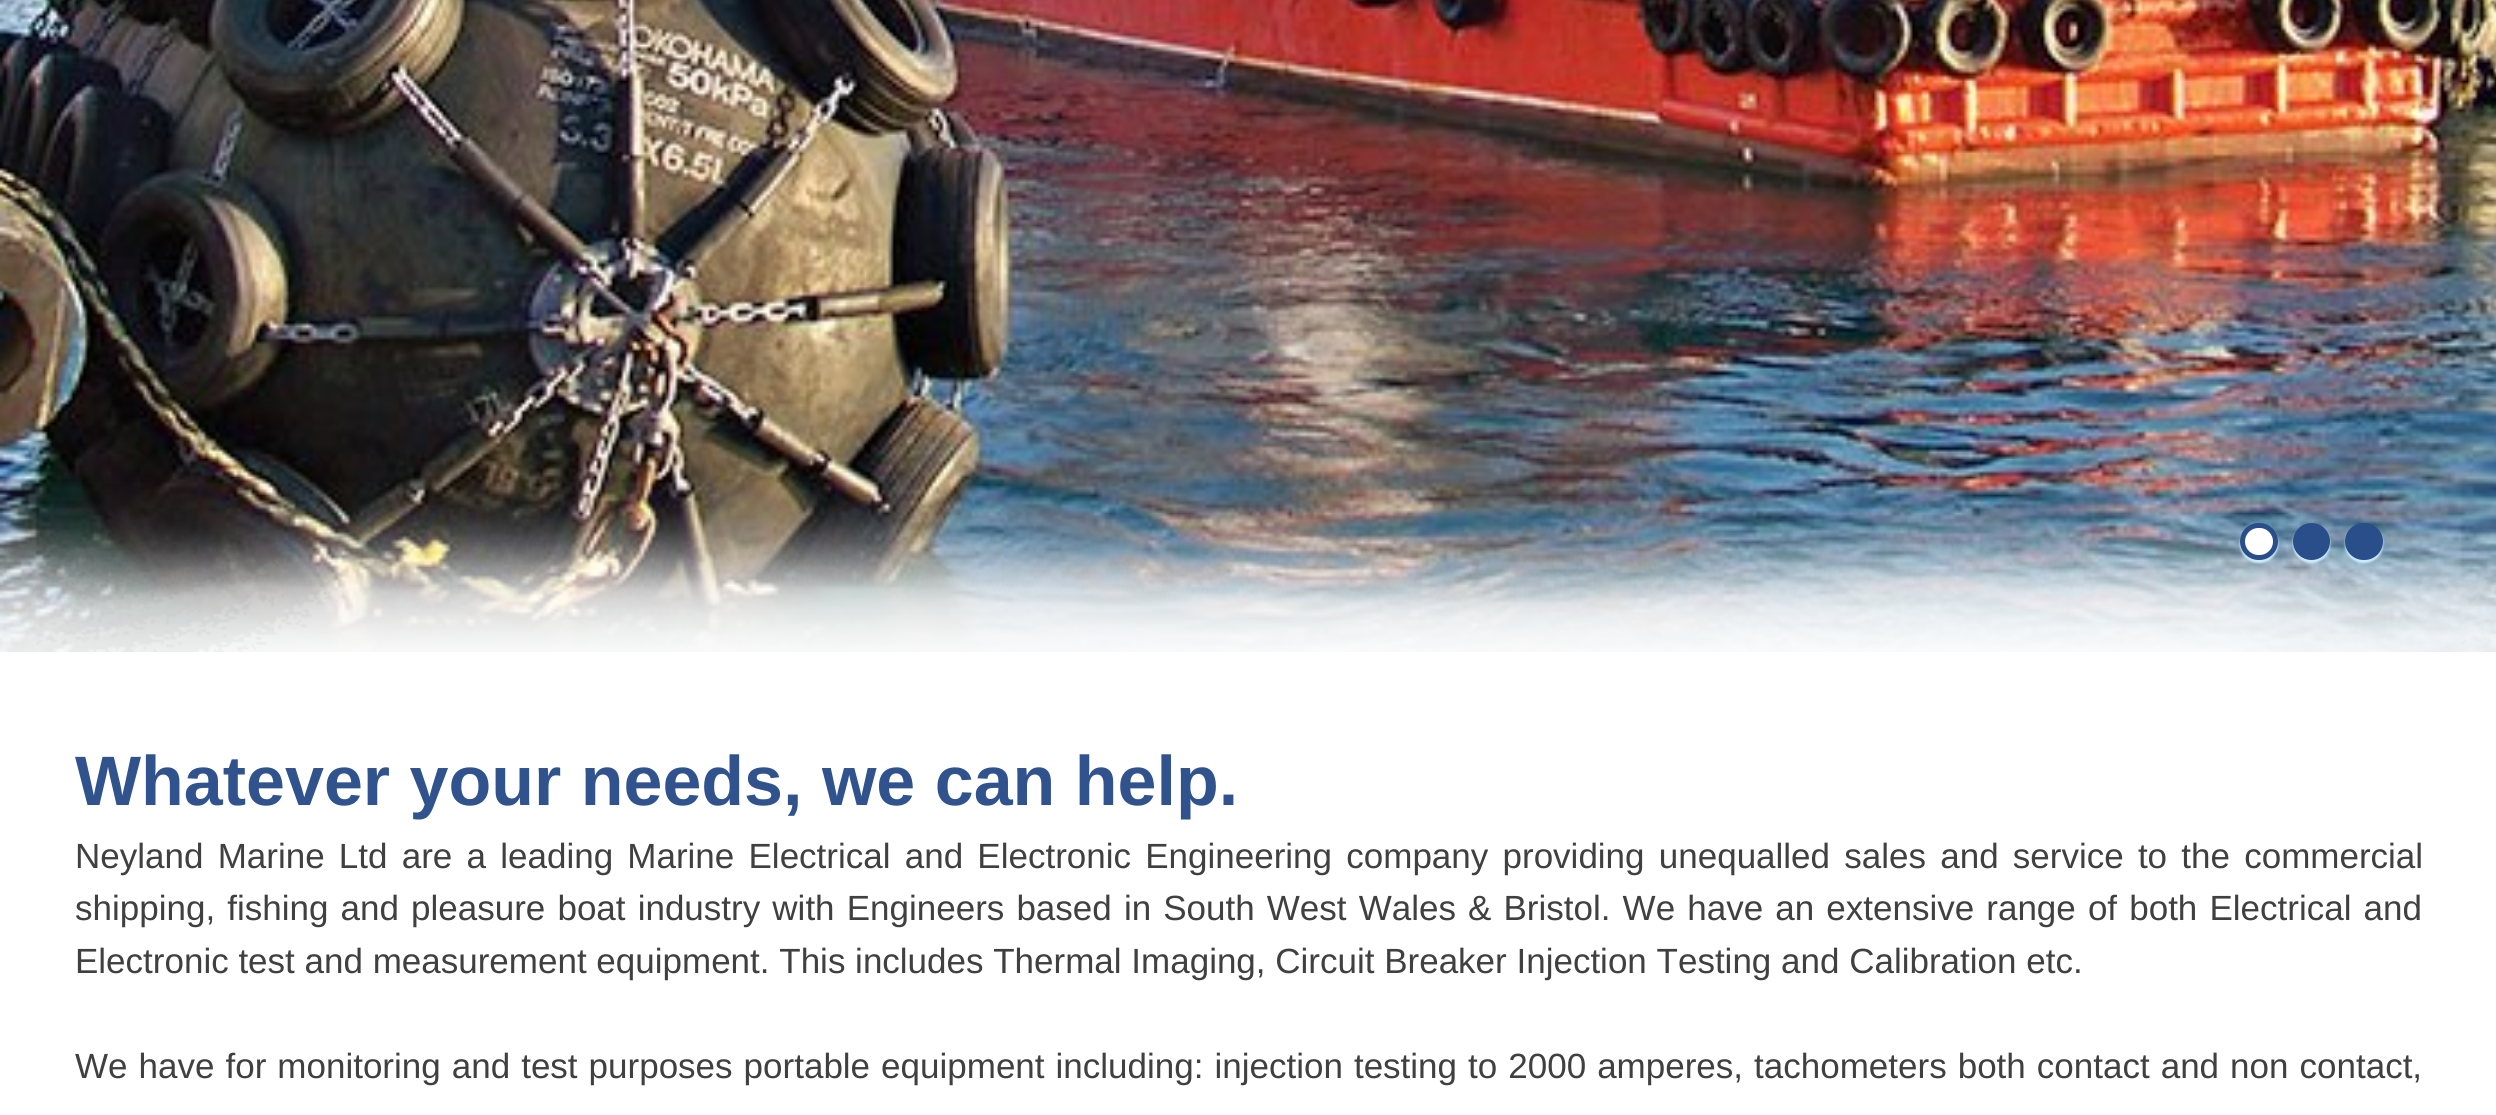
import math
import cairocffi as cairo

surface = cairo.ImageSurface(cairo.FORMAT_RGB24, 2496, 1115)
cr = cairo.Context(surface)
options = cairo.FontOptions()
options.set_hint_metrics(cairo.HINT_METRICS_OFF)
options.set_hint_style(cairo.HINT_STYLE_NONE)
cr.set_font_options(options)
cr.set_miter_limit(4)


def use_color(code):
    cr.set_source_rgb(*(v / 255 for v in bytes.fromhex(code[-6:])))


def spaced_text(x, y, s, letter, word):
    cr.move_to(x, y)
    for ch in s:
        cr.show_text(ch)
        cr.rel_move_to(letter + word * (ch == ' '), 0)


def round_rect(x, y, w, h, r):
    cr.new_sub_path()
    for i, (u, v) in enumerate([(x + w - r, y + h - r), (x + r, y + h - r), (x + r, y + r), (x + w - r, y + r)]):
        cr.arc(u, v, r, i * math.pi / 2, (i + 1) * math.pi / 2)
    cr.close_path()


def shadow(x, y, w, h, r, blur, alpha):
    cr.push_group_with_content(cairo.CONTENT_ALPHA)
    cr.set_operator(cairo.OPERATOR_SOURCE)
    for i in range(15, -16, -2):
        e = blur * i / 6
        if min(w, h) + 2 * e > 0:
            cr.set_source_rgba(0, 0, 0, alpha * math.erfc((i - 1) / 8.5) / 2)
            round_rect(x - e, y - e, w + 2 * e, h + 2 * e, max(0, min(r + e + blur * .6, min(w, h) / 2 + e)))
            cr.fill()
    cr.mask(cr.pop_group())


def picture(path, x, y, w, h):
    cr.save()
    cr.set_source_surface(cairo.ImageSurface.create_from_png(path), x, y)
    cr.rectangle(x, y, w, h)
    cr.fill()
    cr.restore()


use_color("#ffffff")
cr.paint()
picture("img1.png", 0, 0, 2496, 652)
picture("img2.png", 0, 482, 2496, 170)
use_color("#cceeff")
shadow(2240, 525, 38, 38, 19, 1, 1)
use_color("#ffffff")
round_rect(2242.5, 525.5, 33, 32, 16)
cr.fill_preserve()
use_color("#294e8a")
cr.set_line_width(5)
cr.stroke()
use_color("#cceeff")
shadow(2293, 525, 37, 38, 18.5, 1, 1)
use_color("#294e8a")
cr.arc(2311.5, 541.5, 18.5, 0, 2 * math.pi)
cr.fill()
use_color("#cceeff")
shadow(2345, 525, 38, 38, 19, 1, 1)
use_color("#294e8a")
round_rect(2345, 523, 38, 37, 18.5)
cr.fill()
cr.select_font_face("Liberation Sans", cairo.FONT_SLANT_NORMAL, cairo.FONT_WEIGHT_BOLD)
cr.set_font_size(70)
use_color("#30538d")
cr.move_to(75, 805)
cr.show_text("Whatever your needs, we can help.")
cr.select_font_face("Liberation Sans")
cr.set_font_size(35)
use_color("#404040")
spaced_text(75, 868, "Neyland Marine Ltd are a leading Marine Electrical and Electronic Engineering company providing unequalled sales and service to the commercial", 0, 4.5)
spaced_text(75, 920, "shipping, fishing and pleasure boat industry with Engineers based in South West Wales & Bristol. We have an extensive range of both Electrical and", 0, 2.4)
cr.move_to(75, 973)
cr.show_text("Electronic test and measurement equipment. This includes Thermal Imaging, Circuit Breaker Injection Testing and Calibration etc.")
spaced_text(75, 1078, "We have for monitoring and test purposes portable equipment including: injection testing to 2000 amperes, tachometers both contact and non contact,", 0, 1.3)
surface.write_to_png("result.png")
